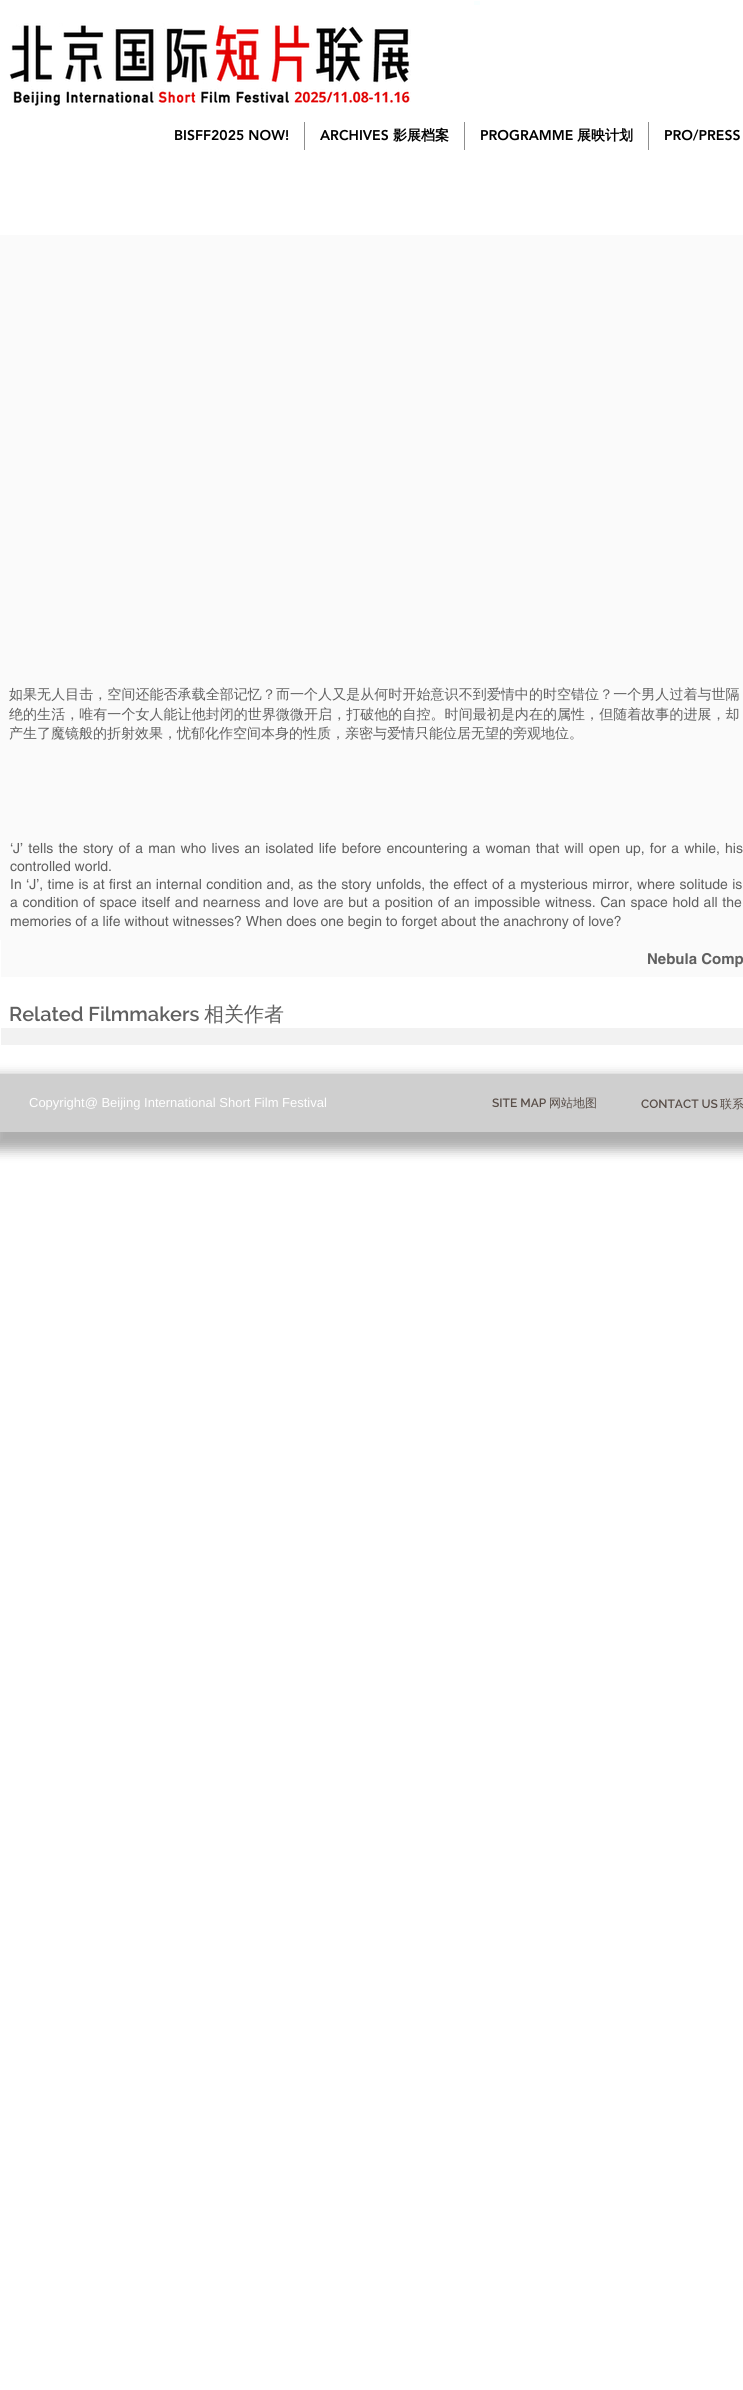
import math
import cairocffi as cairo

surface = cairo.ImageSurface(cairo.FORMAT_RGB24, 743, 2390)
cr = cairo.Context(surface)
options = cairo.FontOptions()
options.set_hint_metrics(cairo.HINT_METRICS_OFF)
options.set_hint_style(cairo.HINT_STYLE_NONE)
cr.set_font_options(options)
cr.set_miter_limit(4)


def use_color(code):
    cr.set_source_rgb(*(v / 255 for v in bytes.fromhex(code[-6:])))


def spaced_text(x, y, s, letter, word):
    cr.move_to(x, y)
    for ch in s:
        cr.show_text(ch)
        cr.rel_move_to(letter + word * (ch == ' '), 0)


def round_rect(x, y, w, h, r):
    cr.new_sub_path()
    for i, (u, v) in enumerate([(x + w - r, y + h - r), (x + r, y + h - r), (x + r, y + r), (x + w - r, y + r)]):
        cr.arc(u, v, r, i * math.pi / 2, (i + 1) * math.pi / 2)
    cr.close_path()


def shadow(x, y, w, h, r, blur, alpha):
    cr.push_group_with_content(cairo.CONTENT_ALPHA)
    cr.set_operator(cairo.OPERATOR_SOURCE)
    for i in range(15, -16, -2):
        e = blur * i / 6
        if min(w, h) + 2 * e > 0:
            cr.set_source_rgba(0, 0, 0, alpha * math.erfc((i - 1) / 8.5) / 2)
            round_rect(x - e, y - e, w + 2 * e, h + 2 * e, max(0, min(r + e + blur * .6, min(w, h) / 2 + e)))
            cr.fill()
    cr.mask(cr.pop_group())


def picture(path, x, y, w, h):
    cr.save()
    cr.set_source_surface(cairo.ImageSurface.create_from_png(path), x, y)
    cr.rectangle(x, y, w, h)
    cr.fill()
    cr.restore()


use_color("#ffffff")
cr.paint()
use_color("#f9ffff")
cr.rectangle(474, 1, 6, 4)
cr.fill()
picture("img1.png", 9, 23, 402, 85)
cr.select_font_face("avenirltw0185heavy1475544 Black")
cr.set_font_size(14)
use_color("#000000")
cr.move_to(174, 140)
cr.show_text("BISFF2025 NOW!")
use_color("#8f8f8f")
cr.rectangle(304, 122, 1, 28)
cr.fill()
use_color("#000000")
cr.move_to(320, 140)
cr.show_text("ARCHIVES")
cr.select_font_face("WenQuanYi Zen Hei", cairo.FONT_SLANT_NORMAL, cairo.FONT_WEIGHT_BOLD)
cr.move_to(393, 140)
cr.show_text("影展档案")
use_color("#8f8f8f")
cr.rectangle(464, 122, 1, 28)
cr.fill()
cr.select_font_face("avenirltw0185heavy1475544 Black")
use_color("#000000")
cr.move_to(480, 140)
cr.show_text("PROGRAMME")
cr.select_font_face("WenQuanYi Zen Hei", cairo.FONT_SLANT_NORMAL, cairo.FONT_WEIGHT_BOLD)
cr.move_to(577, 140)
cr.show_text("展映计划")
use_color("#8f8f8f")
cr.rectangle(648, 122, 1, 28)
cr.fill()
cr.select_font_face("avenirltw0185heavy1475544 Black")
use_color("#000000")
cr.move_to(664, 140)
cr.show_text("PRO/PRESS")
use_color("#fafafa")
cr.rectangle(0, 235, 743, 705)
cr.fill()
cr.select_font_face("WenQuanYi Zen Hei Medium")
use_color("#606060")
spaced_text(9, 699, "如果无人目击，空间还能否承载全部记忆？而一个人又是从何时开始意识不到爱情中的时空错位？一个男人过着与世隔", 0.05, 0)
spaced_text(9, 719, "绝的生活，唯有一个女人能让他封闭的世界微微开启，打破他的自控。时间最初是内在的属性，但随着故事的进展，却", 0.05, 0)
cr.move_to(9, 738)
cr.show_text("产生了魔镜般的折射效果，忧郁化作空间本身的性质，亲密与爱情只能位居无望的旁观地位。")
cr.select_font_face("helvetica")
spaced_text(10, 853, "‘J’ tells the story of a man who lives an isolated life before encountering a woman that will open up, for a while, his", 0, 1.25)
cr.move_to(10, 871)
cr.show_text("controlled world.")
spaced_text(10, 889, "In ‘J’, time is at first an internal condition and, as the story unfolds, the effect of a mysterious mirror, where solitude is", 0, 0.5)
spaced_text(10, 907, "a condition of space itself and nearness and love are but a position of an impossible witness. Can space hold all the", 0, 0.75)
cr.move_to(10, 926)
cr.show_text("memories of a life without witnesses? When does one begin to forget about the anachrony of love?")
use_color("#fafafa")
cr.rectangle(1, 940, 742, 37)
cr.fill()
cr.select_font_face("helvetica", cairo.FONT_SLANT_NORMAL, cairo.FONT_WEIGHT_BOLD)
cr.set_font_size(15)
use_color("#606060")
cr.move_to(647, 964)
cr.show_text("Nebula Comp")
cr.select_font_face("Raleway SemiBold")
cr.set_font_size(20)
cr.move_to(9, 1021)
cr.show_text("Related Filmmakers")
cr.select_font_face("WenQuanYi Zen Hei Medium")
cr.move_to(204, 1021)
cr.show_text("相关作者")
use_color("#f2f2f2")
cr.rectangle(1, 1028, 742, 17)
cr.fill()
use_color("#000000")
shadow(-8, 1076, 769, 74, 0, 6, 0.32)
use_color("#cfcfcf")
cr.rectangle(0, 1074, 743, 58)
cr.fill()
cr.select_font_face("Liberation Sans")
cr.set_font_size(13)
use_color("#ffffff")
cr.move_to(29, 1107)
cr.show_text("Copyright@ Beijing International Short Film Festival")
cr.select_font_face("Raleway SemiBold")
cr.set_font_size(12)
use_color("#594e48")
cr.move_to(492, 1107)
cr.show_text("SITE MAP")
cr.select_font_face("WenQuanYi Zen Hei Medium")
cr.move_to(549, 1107)
cr.show_text("网站地图")
cr.select_font_face("Raleway SemiBold")
cr.move_to(641, 1108)
cr.show_text("CONTACT US")
cr.select_font_face("WenQuanYi Zen Hei Medium")
cr.move_to(720, 1108)
cr.show_text("联系")
surface.write_to_png("result.png")
